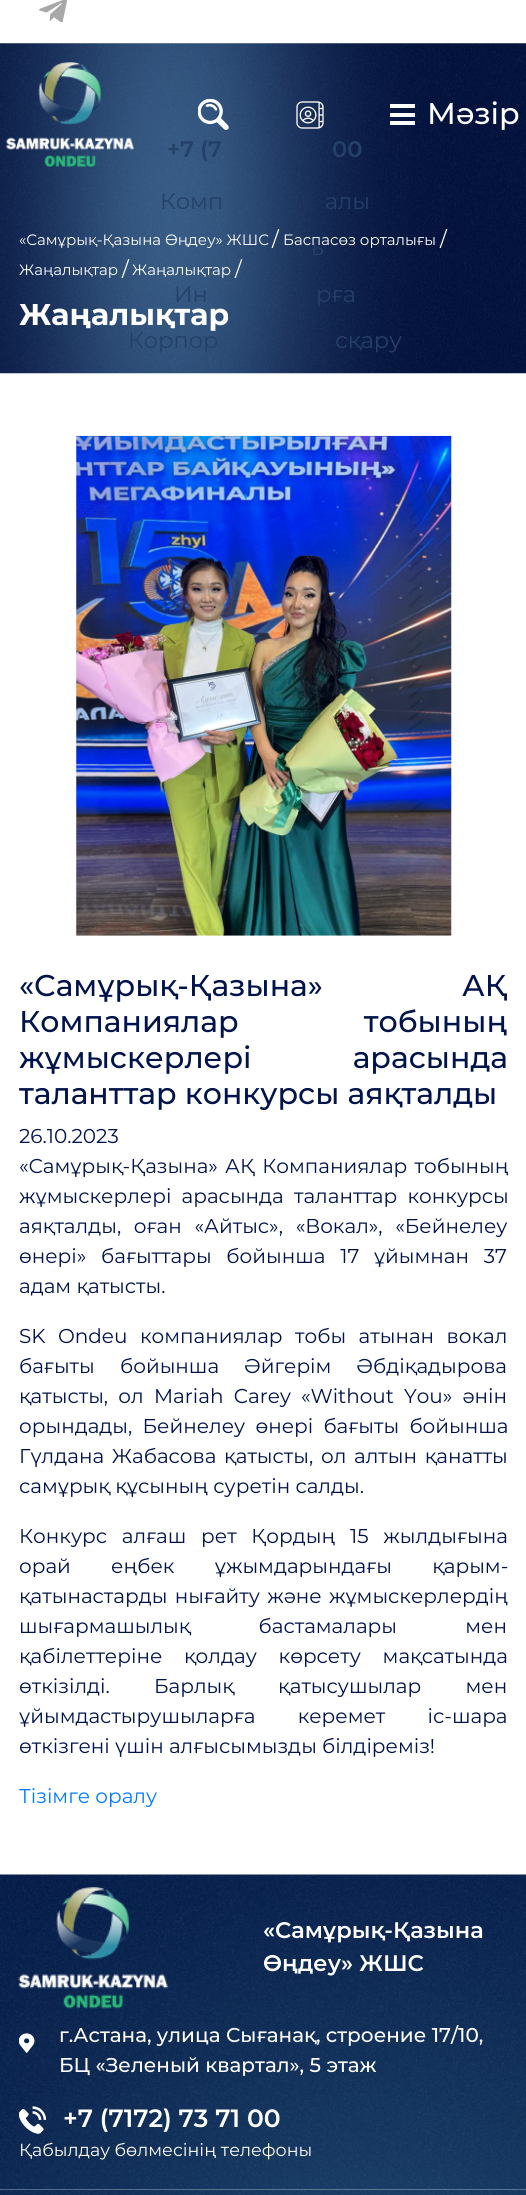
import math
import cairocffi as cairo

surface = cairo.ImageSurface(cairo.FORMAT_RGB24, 526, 2195)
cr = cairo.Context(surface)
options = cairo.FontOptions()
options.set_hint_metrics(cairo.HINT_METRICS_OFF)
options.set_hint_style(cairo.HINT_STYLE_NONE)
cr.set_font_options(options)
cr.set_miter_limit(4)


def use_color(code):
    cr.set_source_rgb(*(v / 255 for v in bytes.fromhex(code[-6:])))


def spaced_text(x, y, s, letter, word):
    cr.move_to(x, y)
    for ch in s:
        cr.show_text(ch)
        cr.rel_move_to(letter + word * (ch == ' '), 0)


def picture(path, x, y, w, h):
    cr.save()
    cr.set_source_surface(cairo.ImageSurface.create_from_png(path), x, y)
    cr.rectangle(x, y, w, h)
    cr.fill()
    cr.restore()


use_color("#ffffff")
cr.paint()
picture("img1.png", 39, 0, 29, 23)
picture("img5.png", 0, 43, 526, 331)
picture("img2.png", 6, 62, 128, 105)
picture("img3.png", 198, 99, 31, 31)
picture("img4.png", 296, 101, 28, 28)
use_color("#ffffff")
cr.rectangle(390, 104, 25, 4)
cr.fill()
cr.rectangle(390, 113, 25, 4)
cr.fill()
cr.rectangle(390, 121, 25, 4)
cr.fill()
cr.select_font_face("Montserrat Medium")
cr.set_font_size(30)
cr.move_to(427, 124)
cr.show_text("Мәзір")
cr.select_font_face("Montserrat SemiBold")
cr.set_font_size(22.5)
use_color("#244069")
cr.move_to(167, 157)
cr.show_text("+7 (7")
cr.move_to(332, 157)
cr.show_text("00")
cr.select_font_face("Montserrat")
cr.move_to(160, 209)
cr.show_text("Комп")
cr.move_to(325, 209)
cr.show_text("алы")
cr.move_to(311, 255)
cr.show_text("ь")
cr.move_to(174, 302)
cr.show_text("Ин")
cr.move_to(316, 302)
cr.show_text("рға")
cr.move_to(128, 348)
cr.show_text("Корпор")
cr.move_to(335, 348)
cr.show_text("сқару")
cr.set_font_size(15)
use_color("#ffffff")
cr.move_to(19, 245)
cr.show_text("«Самұрық-Қазына Өңдеу» ЖШС")
cr.set_font_size(20)
cr.move_to(272, 246)
cr.show_text("/")
cr.set_font_size(15)
cr.move_to(283, 245)
cr.show_text("Баспасөз орталығы")
cr.set_font_size(20)
cr.move_to(440, 246)
cr.show_text("/")
cr.set_font_size(15)
cr.move_to(19, 275)
cr.show_text("Жаңалықтар")
cr.set_font_size(20)
cr.move_to(122, 276)
cr.show_text("/")
cr.set_font_size(15)
cr.move_to(132, 275)
cr.show_text("Жаңалықтар")
cr.set_font_size(20)
cr.move_to(235, 276)
cr.show_text("/")
cr.select_font_face("Montserrat", cairo.FONT_SLANT_NORMAL, cairo.FONT_WEIGHT_BOLD)
cr.set_font_size(30)
cr.move_to(19, 325)
cr.show_text("Жаңалықтар")
picture("img6.png", 76, 435, 376, 501)
cr.select_font_face("Montserrat Medium")
use_color("#00134a")
spaced_text(19, 996, "«Самұрық-Қазына» АҚ", 0, 131)
spaced_text(19, 1032, "Компаниялар тобының", 0, 117)
spaced_text(19, 1068, "жұмыскерлері арасында", 0, 93)
cr.move_to(19, 1104)
cr.show_text("таланттар конкурсы аяқталды")
cr.select_font_face("Montserrat")
cr.set_font_size(20)
cr.move_to(19, 1143)
cr.show_text("26.10.2023")
spaced_text(19, 1173, "«Самұрық-Қазына» АҚ Компаниялар тобының", 0, 2)
spaced_text(19, 1203, "жұмыскерлері арасында таланттар конкурсы", 0, 5)
spaced_text(19, 1233, "аяқталды, оған «Айтыс», «Вокал», «Бейнелеу", 0, 7.5)
spaced_text(19, 1263, "өнері» бағыттары бойынша 17 ұйымнан 37", 0, 9.5)
cr.move_to(19, 1293)
cr.show_text("адам қатысты.")
spaced_text(19, 1343, "SK Ondeu компаниялар тобы атынан вокал", 0, 7.25)
spaced_text(19, 1373, "бағыты бойынша Әйгерім Әбдіқадырова", 0, 20)
spaced_text(19, 1403, "қатысты, ол Mariah Carey «Without You» әнін", 0, 5)
spaced_text(19, 1433, "орындады, Бейнелеу өнері бағыты бойынша", 0, 5)
spaced_text(19, 1463, "Гүлдана Жабасова қатысты, ол алтын қанатты", 0, 2.5)
cr.move_to(19, 1493)
cr.show_text("самұрық құсының суретін салды.")
spaced_text(19, 1543, "Конкурс алғаш рет Қордың 15 жылдығына", 0, 9.5)
spaced_text(19, 1573, "орай еңбек ұжымдарындағы қарым-", 0, 35)
spaced_text(19, 1603, "қатынастарды нығайту және жұмыскерлердің", 0, 2)
spaced_text(19, 1633, "шығармашылық бастамалары мен", 0, 63)
spaced_text(19, 1663, "қабілеттеріне қолдау көрсету мақсатында", 0, 16.5)
spaced_text(19, 1693, "өткізілді. Барлық қатысушылар мен", 0, 39)
spaced_text(19, 1723, "ұйымдастырушыларға керемет іс-шара", 0, 37)
cr.move_to(19, 1753)
cr.show_text("өткізгені үшін алғысымызды білдіреміз!")
use_color("#007bff")
cr.move_to(19, 1803)
cr.show_text("Тізімге оралу")
picture("img7.png", 0, 1874, 526, 321)
picture("img8.png", 18, 1887, 150, 122)
cr.select_font_face("Montserrat SemiBold")
cr.set_font_size(22.5)
use_color("#ffffff")
cr.move_to(263, 1938)
cr.show_text("«Самұрық-Қазына")
cr.move_to(263, 1971)
cr.show_text("Өңдеу» ЖШС")
picture("img9.png", 19, 2033, 16, 20)
cr.select_font_face("Montserrat Medium")
cr.set_font_size(20)
cr.move_to(59, 2042)
cr.show_text("г.Астана, улица Сығанақ, строение 17/10,")
cr.move_to(59, 2072)
cr.show_text("БЦ «Зеленый квартал», 5 этаж")
picture("img10.png", 19, 2106, 27, 28)
cr.select_font_face("Montserrat SemiBold")
cr.set_font_size(25)
cr.move_to(63, 2127)
cr.show_text("+7 (7172) 73 71 00")
cr.select_font_face("Montserrat")
cr.set_font_size(17.5)
cr.move_to(19, 2156)
cr.show_text("Қабылдау бөлмесінің телефоны")
cr.set_source_rgba(1, 1, 1, 0.3)
cr.rectangle(0, 2189, 526, 1)
cr.fill()
surface.write_to_png("result.png")
